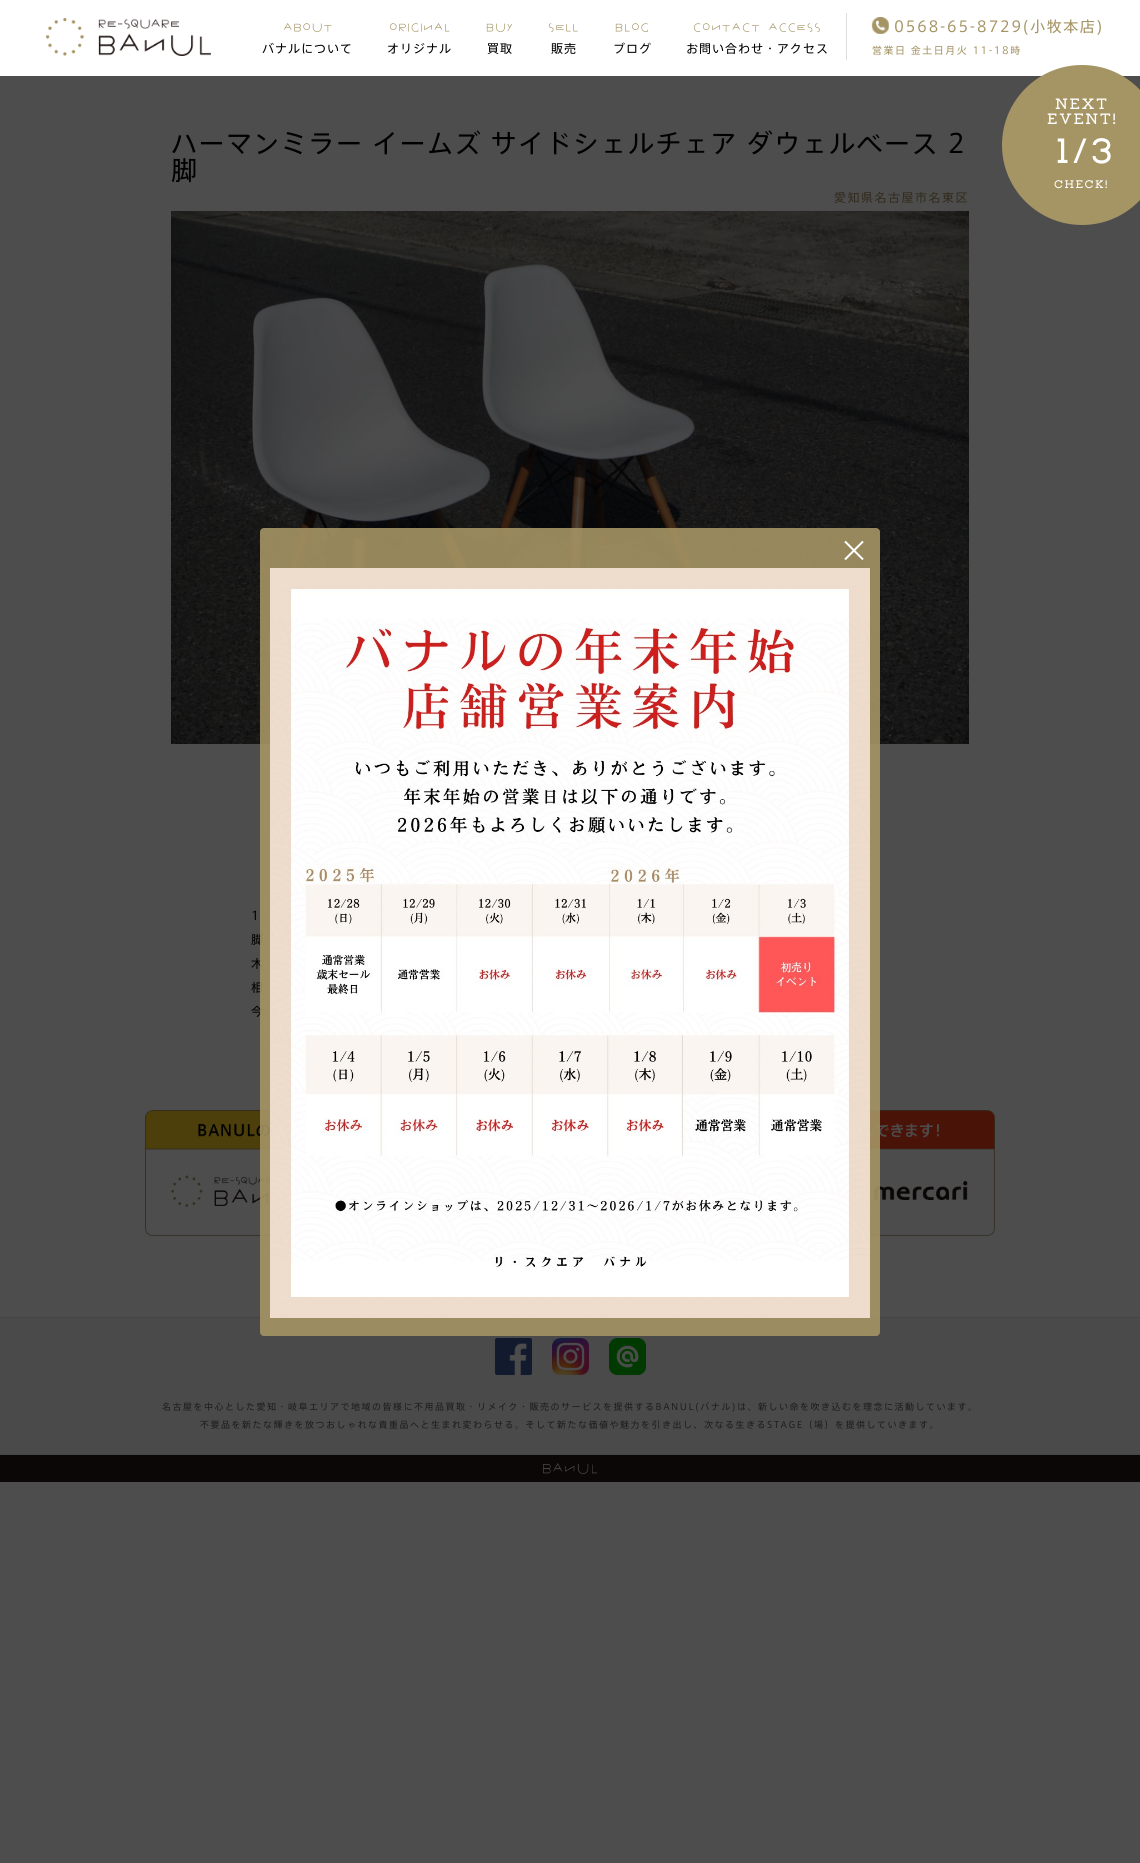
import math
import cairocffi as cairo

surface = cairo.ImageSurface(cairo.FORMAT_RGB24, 1140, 1863)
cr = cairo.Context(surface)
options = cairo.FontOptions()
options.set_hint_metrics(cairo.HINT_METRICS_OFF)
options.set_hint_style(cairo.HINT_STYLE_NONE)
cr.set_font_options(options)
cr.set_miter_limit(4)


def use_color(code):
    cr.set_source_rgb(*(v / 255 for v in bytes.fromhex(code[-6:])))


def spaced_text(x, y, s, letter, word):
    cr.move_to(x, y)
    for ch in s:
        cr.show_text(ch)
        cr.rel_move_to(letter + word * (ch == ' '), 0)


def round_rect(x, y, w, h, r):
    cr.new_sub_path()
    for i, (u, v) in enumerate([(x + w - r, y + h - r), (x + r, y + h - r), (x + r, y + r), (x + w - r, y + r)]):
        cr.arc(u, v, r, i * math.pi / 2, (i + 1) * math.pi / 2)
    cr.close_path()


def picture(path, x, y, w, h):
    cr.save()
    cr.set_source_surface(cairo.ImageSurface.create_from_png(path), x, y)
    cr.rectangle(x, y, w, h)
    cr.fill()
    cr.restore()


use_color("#4d4d4d")
cr.paint()
use_color("#ffffff")
cr.rectangle(0, 0, 1140, 76)
cr.fill()
picture("img1.png", 46, 18, 165, 38)
cr.select_font_face("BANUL")
cr.set_font_size(12)
use_color("#a59464")
spaced_text(283, 32, "ABOUT", 1, 0)
cr.select_font_face("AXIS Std")
use_color("#000000")
spaced_text(262, 53, "バナルについて", 1, 0)
cr.select_font_face("BANUL")
use_color("#a59464")
spaced_text(389, 32, "ORIGINAL", 1, 0)
cr.select_font_face("AXIS Std")
use_color("#000000")
spaced_text(387, 53, "オリジナル", 1, 0)
cr.select_font_face("BANUL")
use_color("#a59464")
spaced_text(486, 32, "BUY", 1, 0)
cr.select_font_face("AXIS Std")
use_color("#000000")
spaced_text(487, 53, "買取", 1, 0)
cr.select_font_face("BANUL")
use_color("#a59464")
spaced_text(548, 32, "SELL", 1, 0)
cr.select_font_face("AXIS Std")
use_color("#000000")
spaced_text(551, 53, "販売", 1, 0)
cr.select_font_face("BANUL")
use_color("#a59464")
spaced_text(615, 32, "BLOG", 1, 0)
cr.select_font_face("AXIS Std")
use_color("#000000")
spaced_text(613, 53, "ブログ", 1, 0)
cr.select_font_face("BANUL")
use_color("#a59464")
spaced_text(693, 32, "CONTACT ACCESS", 1, 0)
cr.select_font_face("AXIS Std")
use_color("#000000")
spaced_text(686, 53, "お問い合わせ・アクセス", 1, 0)
use_color("#dcdcdc")
cr.rectangle(846, 13, 1, 47)
cr.fill()
picture("img2.png", 871, 17, 18, 17)
cr.set_font_size(15)
use_color("#a59464")
spaced_text(894, 32, "0568-65-8729(小牧本店)", 1.5, 0)
cr.set_font_size(10)
spaced_text(872, 54, "営業日 金土日月火 11-18時", 1.5, 0)
cr.new_path()
cr.arc(1082, 145, 80, 0, 2 * math.pi)
cr.fill()
cr.select_font_face("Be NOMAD")
cr.set_font_size(15)
use_color("#ffffff")
spaced_text(1055, 109, "NEXT", 1.5, 0)
spaced_text(1047, 124, "EVENT!", 1.5, 0)
cr.set_font_size(35)
spaced_text(1056, 163, "1 / 3", -4, 0)
cr.set_font_size(11)
spaced_text(1054, 188, "CHECK!", 1.5, 0)
cr.select_font_face("AXIS Std")
cr.set_font_size(26)
use_color("#000000")
spaced_text(171, 153, "ハーマンミラー イームズ サイドシェルチェア ダウェルベース 2", 1.5, 0)
spaced_text(171, 180, "脚", 1.5, 0)
cr.set_font_size(12)
use_color("#322c1e")
spaced_text(834, 202, "愛知県名古屋市名東区", 1.5, 0)
picture("img3.png", 171, 211, 798, 533)
use_color("#000000")
spaced_text(251, 920, "1", 1.5, 0)
spaced_text(251, 944, "脚", 1.5, 0)
spaced_text(251, 968, "木", 1.5, 0)
spaced_text(251, 992, "相", 1.5, 0)
spaced_text(251, 1016, "今", 1.5, 0)
picture("img5.png", 145, 1110, 125, 126)
picture("img6.png", 870, 1110, 125, 126)
use_color("#4a4a4a")
cr.rectangle(0, 1318, 1140, 136)
cr.fill()
use_color("#454545")
cr.rectangle(0, 1317, 1140, 1)
cr.fill()
cr.set_source_rgba(0.647, 0.58, 0.392, 0.9)
round_rect(260, 528, 620, 808, 4)
cr.fill()
cr.set_font_size(30)
use_color("#ffffff")
spaced_text(839, 562, "×", 1.5, 0)
picture("img4.png", 270, 568, 600, 750)
use_color("#454545")
cr.rectangle(0, 1454, 1140, 1)
cr.fill()
picture("img7.png", 495, 1338, 37, 37)
picture("img8.png", 552, 1338, 37, 37)
picture("img9.png", 609, 1338, 37, 37)
cr.set_font_size(9)
use_color("#1d1d1d")
spaced_text(162, 1410, "名古屋を中心とした愛知・岐阜エリアで地域の皆様に不用品買取・リメイク・販売のサービスを提供するBANUL(バナル)は、新しい命を吹き込むを理念に活動しています。", 1.5, 0)
spaced_text(200, 1428, "不要品を新たな輝きを放つおしゃれな貴重品へと生まれ変わらせる。そして新たな価値や魅力を引き出し、次なる生きるSTAGE（場）を提供していきます。", 1.5, 0)
use_color("#0b0706")
cr.rectangle(0, 1455, 1140, 27)
cr.fill()
picture("img10.png", 543, 1463, 54, 11)
surface.write_to_png("result.png")
